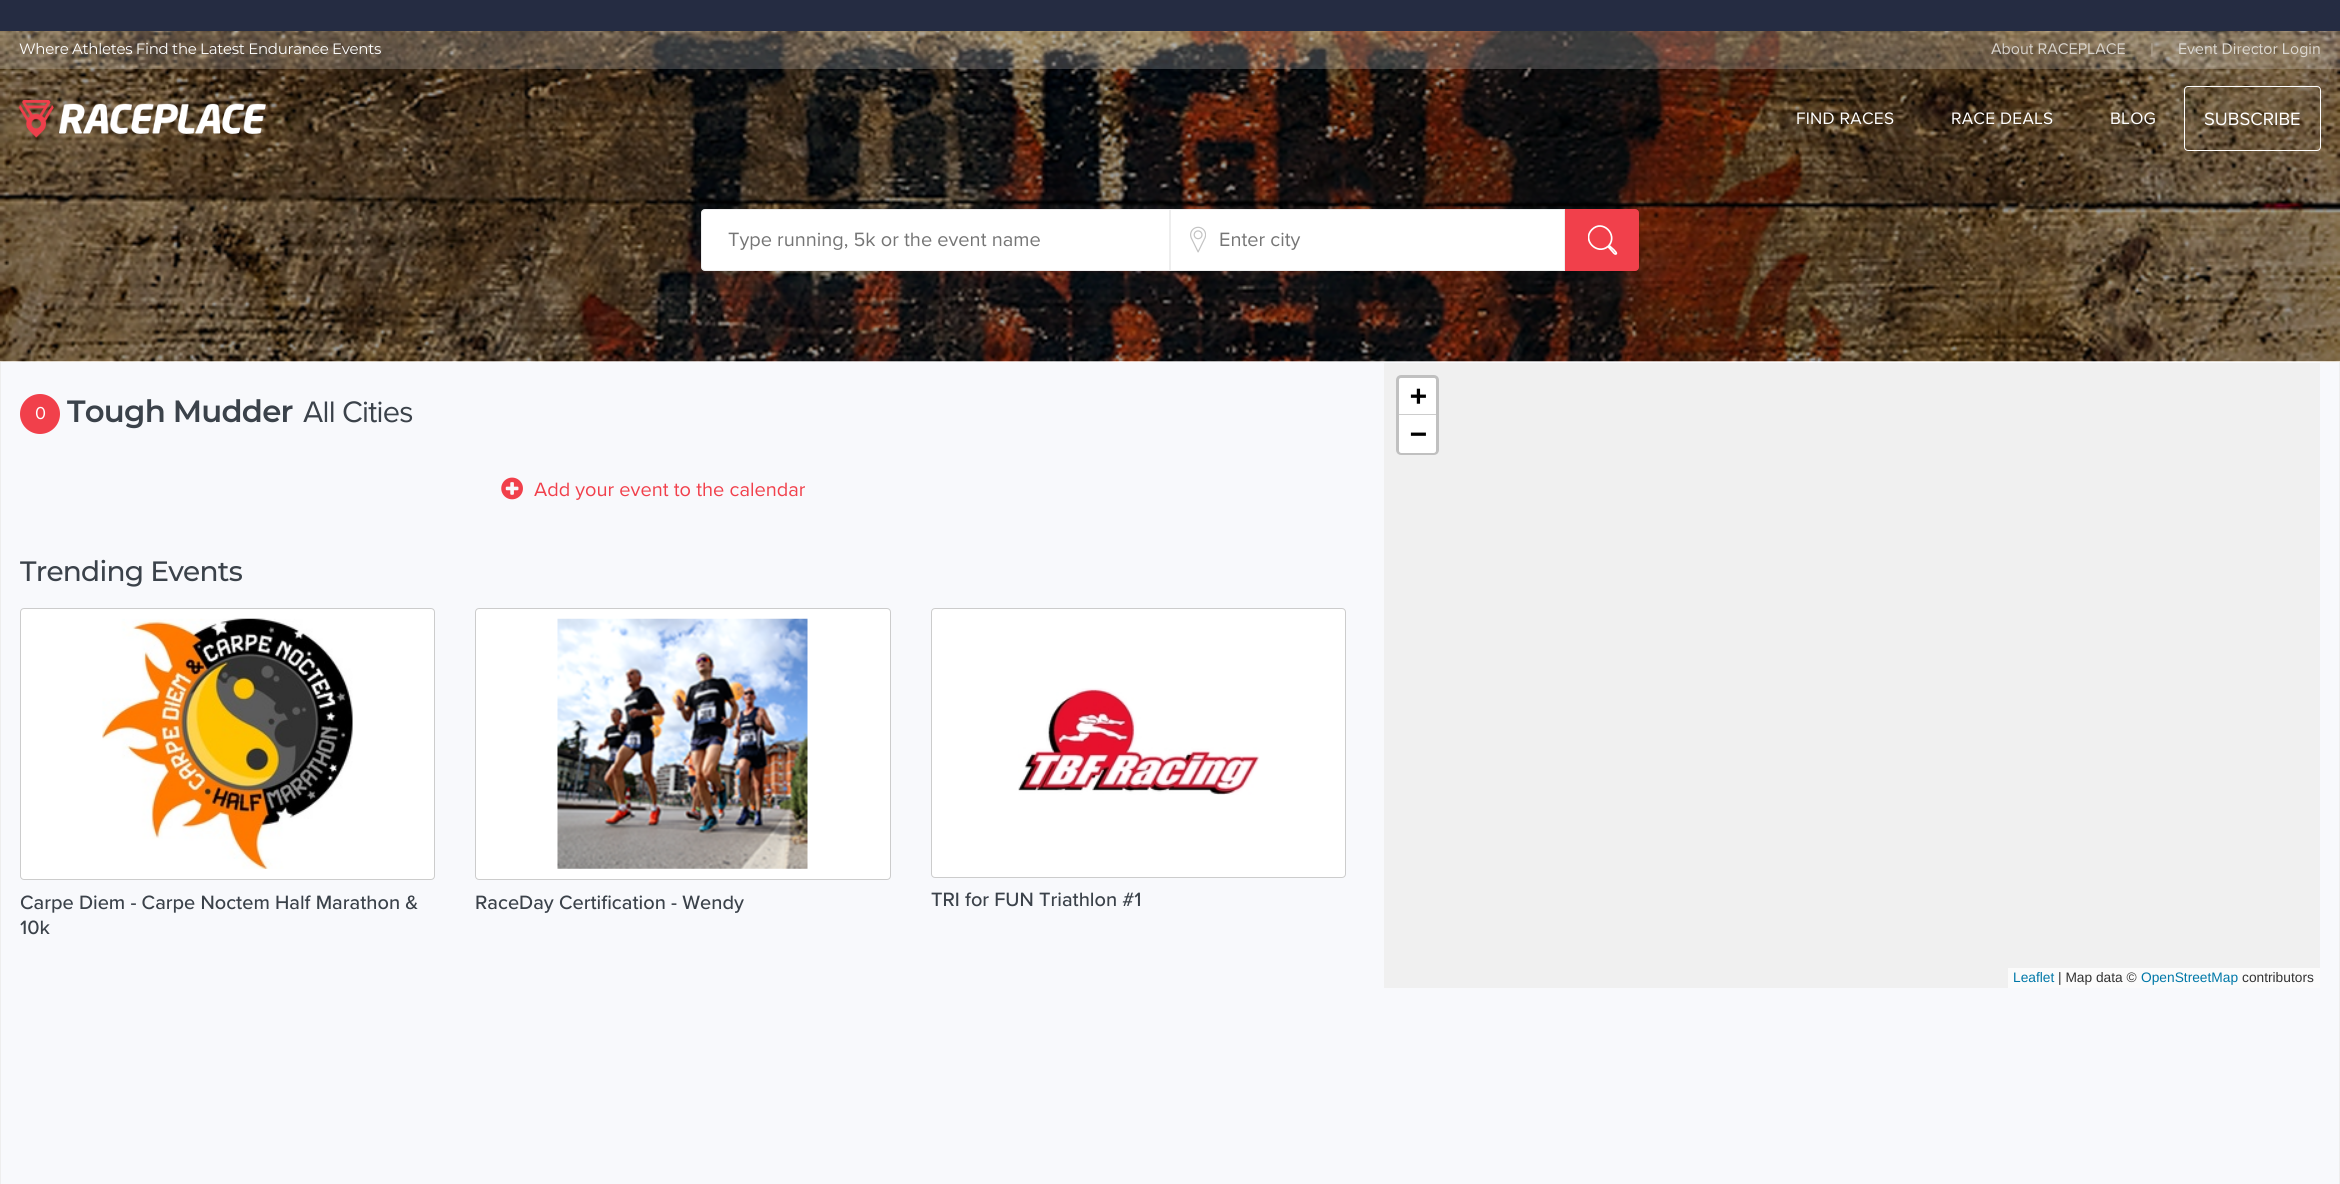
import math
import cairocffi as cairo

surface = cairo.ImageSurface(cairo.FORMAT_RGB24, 2340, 1184)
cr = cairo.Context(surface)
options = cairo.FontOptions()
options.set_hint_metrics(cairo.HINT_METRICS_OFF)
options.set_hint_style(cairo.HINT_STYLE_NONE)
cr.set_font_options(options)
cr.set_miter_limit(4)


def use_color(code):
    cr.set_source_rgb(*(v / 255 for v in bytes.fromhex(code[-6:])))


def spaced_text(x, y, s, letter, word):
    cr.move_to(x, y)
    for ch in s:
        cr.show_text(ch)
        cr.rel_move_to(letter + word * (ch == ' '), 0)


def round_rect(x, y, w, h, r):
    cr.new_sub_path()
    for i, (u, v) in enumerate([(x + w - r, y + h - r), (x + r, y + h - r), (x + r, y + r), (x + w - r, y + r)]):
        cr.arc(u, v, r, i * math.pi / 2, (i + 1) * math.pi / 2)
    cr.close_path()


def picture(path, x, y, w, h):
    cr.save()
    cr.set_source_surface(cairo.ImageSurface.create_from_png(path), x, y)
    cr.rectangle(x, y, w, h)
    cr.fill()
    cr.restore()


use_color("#f8f9fc")
cr.paint()
cr.rectangle(0.5, 361.5, 2339, 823)
use_color("#eeeeee")
cr.set_line_width(1)
cr.stroke()
picture("img1.png", 0, 31, 2340, 331)
use_color("#252c42")
cr.rectangle(0, 0, 2340, 31)
cr.fill()
cr.set_source_rgba(1, 1, 1, 0.2)
cr.rectangle(0, 31, 2340, 38)
cr.fill()
cr.select_font_face("Montserrat")
cr.set_font_size(15)
use_color("#ffffff")
spaced_text(19, 54, "Where Athletes Find the Latest Endurance Events", -0.3, 0)
cr.select_font_face("Proxima Nova")
cr.set_font_size(16)
use_color("#d7d2cb")
cr.move_to(1991, 54)
cr.show_text("About RACEPLACE")
cr.set_font_size(18.5)
use_color("#b4a999")
cr.move_to(2150, 56)
cr.show_text("|")
cr.set_font_size(16)
use_color("#dcd8d1")
cr.move_to(2178, 54)
cr.show_text("Event Director Login")
picture("img2.png", 18, 100, 248, 38)
cr.set_font_size(17.25)
use_color("#ffffff")
spaced_text(1796, 124, "FIND RACES", 0.25, 0)
spaced_text(1951, 124, "RACE DEALS", 0.25, 0)
spaced_text(2110, 124, "BLOG", 0.25, 0)
round_rect(2184.5, 86.5, 136, 64, 3.5)
cr.stroke()
cr.set_font_size(18.5)
cr.move_to(2204, 125)
cr.show_text("SUBSCRIBE")
cr.new_path()
cr.move_to(705, 209.5)
cr.line_to(1169.5, 209.5)
cr.line_to(1169.5, 270.5)
cr.line_to(705, 270.5)
cr.curve_to(703, 270.5, 701.5, 269, 701.5, 267)
cr.line_to(701.5, 213)
cr.curve_to(701.5, 211, 703, 209.5, 705, 209.5)
cr.close_path()
cr.fill_preserve()
use_color("#eeeeee")
cr.stroke()
cr.set_font_size(20)
use_color("#757575")
cr.move_to(728, 246)
cr.show_text("Type running, 5k or the event name")
use_color("#ffffff")
cr.rectangle(1171, 210, 393, 60)
cr.fill()
picture("img3.png", 1190, 226, 16, 27)
cr.rectangle(1170.5, 209.5, 394, 61)
use_color("#eeeeee")
cr.stroke()
use_color("#757575")
cr.move_to(1219, 246)
cr.show_text("Enter city")
use_color("#f1404b")
cr.new_path()
cr.move_to(1565.5, 209.5)
cr.line_to(1635, 209.5)
cr.curve_to(1637, 209.5, 1638.5, 211, 1638.5, 213)
cr.line_to(1638.5, 267)
cr.curve_to(1638.5, 269, 1637, 270.5, 1635, 270.5)
cr.line_to(1565.5, 270.5)
cr.close_path()
cr.fill_preserve()
cr.stroke()
cr.save()
cr.rectangle(1588, 225, 30, 30)
cr.clip()
cr.new_path()
cr.move_to(1609, 245.5)
cr.line_to(1614, 250)
cr.curve_to(1614, 250.5, 1617.5, 253, 1616, 254)
cr.curve_to(1614.5, 254.5, 1613, 252, 1612.5, 251.5)
cr.line_to(1608, 246.5)
cr.curve_to(1597, 255.5, 1581.5, 240, 1592, 229.5)
cr.curve_to(1602.5, 219, 1618, 234.5, 1609, 245.5)
cr.close_path()
use_color("#ffffff")
cr.set_line_width(1.7)
cr.stroke()
cr.restore()
cr.arc(40, 414, 20, 0, 2 * math.pi)
cr.fill()
cr.set_font_size(18)
use_color("#ffffff")
cr.move_to(35, 419)
cr.show_text("0")
cr.select_font_face("Montserrat SemiBold")
cr.set_font_size(30.75)
use_color("#3b424a")
spaced_text(67, 422, "Tough Mudder", -0.75, 0)
cr.select_font_face("Proxima Nova")
spaced_text(303, 422, "All Cities", -0.75, 0)
picture("img4.png", 501, 477, 22, 23)
cr.set_font_size(20)
use_color("#f1404b")
cr.move_to(534, 496)
cr.show_text("Add your event to the calendar")
cr.select_font_face("Montserrat Medium")
cr.set_font_size(28)
use_color("#3b424a")
spaced_text(20, 581, "Trending Events", -0.75, 0)
use_color("#ffffff")
round_rect(20.5, 608.5, 414, 271, 3.5)
cr.fill_preserve()
use_color("#cccccc")
cr.stroke()
picture("img5.png", 102, 618, 251, 251)
cr.select_font_face("Proxima Nova Medium")
cr.set_font_size(20)
use_color("#3b424a")
cr.move_to(20, 909)
cr.show_text("Carpe Diem - Carpe Noctem Half Marathon &")
cr.move_to(20, 934)
cr.show_text("10k")
use_color("#ffffff")
round_rect(475.5, 608.5, 415, 271, 3.5)
cr.fill_preserve()
use_color("#cccccc")
cr.stroke()
picture("img6.png", 557, 618, 251, 251)
use_color("#3b424a")
cr.move_to(475, 909)
cr.show_text("RaceDay Certification - Wendy")
use_color("#ffffff")
round_rect(931.5, 608.5, 414, 269, 3.5)
cr.fill_preserve()
use_color("#cccccc")
cr.stroke()
picture("img7.png", 1018, 688, 242, 107)
use_color("#3b424a")
cr.move_to(931, 906)
cr.show_text("TRI for FUN Triathlon #1")
use_color("#f0f0f0")
cr.rectangle(1384, 363, 936, 625)
cr.fill()
round_rect(1397.5, 376.5, 40, 77, 3.5)
use_color("#c0c0c0")
cr.set_line_width(3)
cr.stroke()
use_color("#ffffff")
cr.new_path()
cr.move_to(1401.5, 378)
cr.line_to(1433.5, 378)
cr.curve_to(1435, 378, 1436, 379, 1436, 380.5)
cr.line_to(1436, 415)
cr.line_to(1399, 415)
cr.line_to(1399, 380.5)
cr.curve_to(1399, 379, 1400, 378, 1401.5, 378)
cr.close_path()
cr.fill()
use_color("#cccccc")
cr.rectangle(1399, 414, 37, 1)
cr.fill()
cr.select_font_face("DejaVu Sans Mono", cairo.FONT_SLANT_NORMAL, cairo.FONT_WEIGHT_BOLD)
cr.set_font_size(28)
use_color("#000000")
cr.move_to(1410, 405)
cr.show_text("+")
use_color("#ffffff")
cr.new_path()
cr.move_to(1399, 415)
cr.line_to(1436, 415)
cr.line_to(1436, 450.5)
cr.curve_to(1436, 452, 1435, 453, 1433.5, 453)
cr.line_to(1401.5, 453)
cr.curve_to(1400, 453, 1399, 452, 1399, 450.5)
cr.close_path()
cr.fill()
use_color("#000000")
cr.move_to(1410, 443)
cr.show_text("−")
use_color("#fbfbfb")
cr.rectangle(2008, 968, 312, 20)
cr.fill()
cr.select_font_face("Liberation Sans")
cr.set_font_size(13.75)
use_color("#0078a8")
cr.move_to(2013, 982)
cr.show_text("Leaflet")
use_color("#333333")
cr.move_to(2058, 982)
cr.show_text("| Map data ©")
use_color("#0078a8")
cr.move_to(2141, 982)
cr.show_text("OpenStreetMap")
use_color("#333333")
cr.move_to(2242, 982)
cr.show_text("contributors")
surface.write_to_png("result.png")
